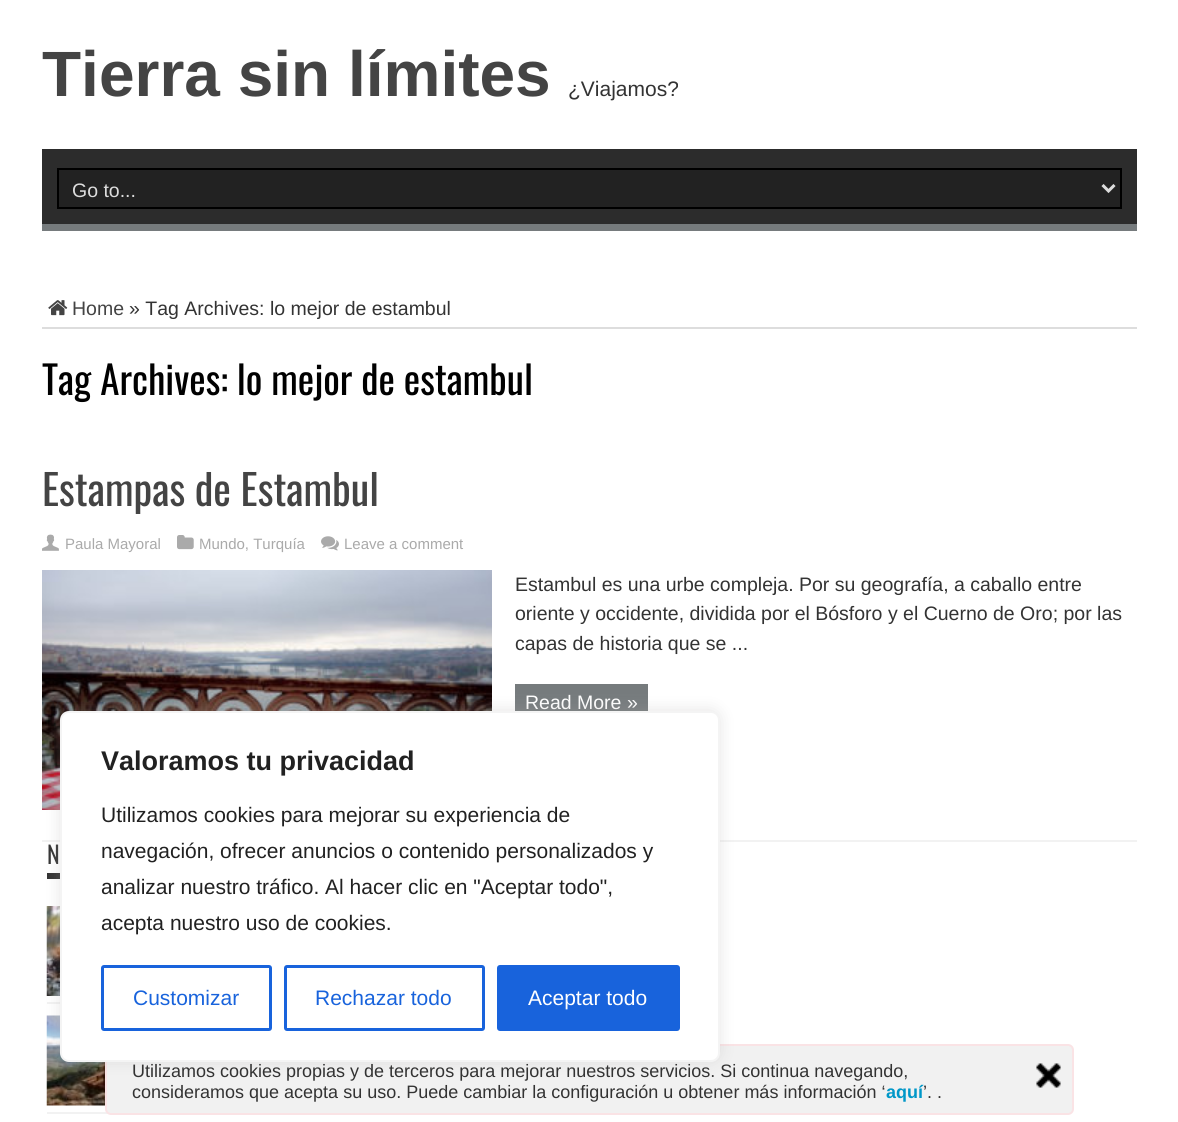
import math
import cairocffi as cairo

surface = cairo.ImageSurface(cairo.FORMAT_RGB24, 1178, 1122)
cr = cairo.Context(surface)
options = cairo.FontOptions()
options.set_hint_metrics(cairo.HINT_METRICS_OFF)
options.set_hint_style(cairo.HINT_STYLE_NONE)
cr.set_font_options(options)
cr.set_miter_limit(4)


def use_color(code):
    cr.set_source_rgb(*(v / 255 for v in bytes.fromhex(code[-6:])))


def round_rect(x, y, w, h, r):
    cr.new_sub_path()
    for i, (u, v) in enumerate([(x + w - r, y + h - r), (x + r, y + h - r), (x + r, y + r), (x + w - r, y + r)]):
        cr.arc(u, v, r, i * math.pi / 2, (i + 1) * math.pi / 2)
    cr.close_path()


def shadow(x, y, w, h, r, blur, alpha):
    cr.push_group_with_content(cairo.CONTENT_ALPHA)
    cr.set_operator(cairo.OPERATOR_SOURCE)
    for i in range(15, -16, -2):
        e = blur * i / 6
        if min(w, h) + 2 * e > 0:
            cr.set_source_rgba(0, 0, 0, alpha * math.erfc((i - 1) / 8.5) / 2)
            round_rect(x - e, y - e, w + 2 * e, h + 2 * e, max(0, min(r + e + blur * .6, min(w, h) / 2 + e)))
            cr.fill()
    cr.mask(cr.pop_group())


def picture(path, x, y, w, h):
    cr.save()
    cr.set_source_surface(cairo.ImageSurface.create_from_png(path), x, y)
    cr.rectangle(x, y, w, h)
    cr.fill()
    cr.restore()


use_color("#ffffff")
cr.paint()
cr.select_font_face("Liberation Sans", cairo.FONT_SLANT_NORMAL, cairo.FONT_WEIGHT_BOLD)
cr.set_font_size(64)
use_color("#444444")
cr.move_to(42, 96)
cr.show_text("Tierra sin límites")
cr.select_font_face("Liberation Sans")
cr.set_font_size(21)
use_color("#333333")
cr.move_to(568, 96)
cr.show_text("¿Viajamos?")
use_color("#2c2c2c")
cr.rectangle(42, 149, 1095, 75)
cr.fill()
use_color("#767b7d")
cr.rectangle(42, 224, 1095, 7)
cr.fill()
use_color("#222222")
cr.rectangle(58, 169, 1063, 39)
cr.fill_preserve()
use_color("#000000")
cr.stroke()
cr.new_path()
cr.move_to(1102.5, 185)
cr.line_to(1108.5, 191)
cr.line_to(1114.5, 185)
use_color("#dddddd")
cr.set_line_width(3)
cr.stroke()
cr.set_font_size(19.5)
cr.move_to(72, 197)
cr.show_text("Go to...")
cr.rectangle(42, 327, 1095, 2)
cr.fill()
picture("img1.png", 48, 300, 20, 16)
use_color("#444444")
cr.move_to(72, 315)
cr.show_text("Home")
use_color("#333333")
cr.move_to(129, 315)
cr.show_text("» Tag Archives: lo mejor de estambul")
cr.select_font_face("Oswald")
cr.set_font_size(39)
use_color("#000000")
cr.move_to(42, 395)
cr.show_text("Tag Archives: lo mejor de estambul")
use_color("#f2f2f2")
cr.rectangle(42, 840, 1095, 2)
cr.fill()
cr.set_font_size(42)
use_color("#444444")
cr.move_to(42, 506)
cr.show_text("Estampas de Estambul")
picture("img2.png", 42, 534, 17, 17)
cr.select_font_face("Liberation Sans")
cr.set_font_size(15)
use_color("#aaaaaa")
cr.move_to(65, 549)
cr.show_text("Paula Mayoral")
picture("img3.png", 177, 535, 17, 15)
cr.move_to(199, 549)
cr.show_text("Mundo, Turquía")
picture("img4.png", 321, 536, 18, 15)
cr.move_to(344, 549)
cr.show_text("Leave a comment")
picture("img5.png", 42, 570, 450, 240)
cr.set_font_size(19.5)
use_color("#333333")
cr.move_to(515, 591)
cr.show_text("Estambul es una urbe compleja. Por su geografía, a caballo entre")
cr.move_to(515, 620)
cr.show_text("oriente y occidente, dividida por el Bósforo y el Cuerno de Oro; por las")
cr.move_to(515, 650)
cr.show_text("capas de historia que se ...")
use_color("#767b7d")
cr.rectangle(515, 684, 133, 27)
cr.fill()
use_color("#ffffff")
cr.move_to(525, 709)
cr.show_text("Read More »")
use_color("#333333")
cr.rectangle(47, 873, 13, 6)
cr.fill()
cr.select_font_face("Oswald")
cr.set_font_size(24)
cr.move_to(47, 864)
cr.show_text("N")
use_color("#f2f2f2")
cr.rectangle(47, 1002, 13, 2)
cr.fill()
picture("img6.png", 46, 906, 14, 90)
cr.rectangle(47, 1112, 61, 2)
cr.fill()
picture("img7.png", 46, 1015, 59, 91)
use_color("#f1f1f1")
round_rect(106, 1045, 967, 69, 5)
cr.fill_preserve()
use_color("#fae3e5")
cr.set_line_width(2)
cr.stroke()
use_color("#acabab")
shadow(60, 710, 660, 351, 9, 7.5, 0.3)
use_color("#ffffff")
round_rect(61, 712, 658, 349, 8)
cr.fill_preserve()
use_color("#f4f4f4")
cr.stroke()
cr.select_font_face("Liberation Sans", cairo.FONT_SLANT_NORMAL, cairo.FONT_WEIGHT_BOLD)
cr.set_font_size(27)
use_color("#212121")
cr.move_to(101, 770)
cr.show_text("Valoramos tu privacidad")
cr.select_font_face("Liberation Sans")
cr.set_font_size(21)
cr.move_to(101, 822)
cr.show_text("Utilizamos cookies para mejorar su experiencia de")
cr.move_to(101, 858)
cr.show_text("navegación, ofrecer anuncios o contenido personalizados y")
cr.move_to(101, 894)
cr.show_text("analizar nuestro tráfico. Al hacer clic en \"Aceptar todo\",")
cr.move_to(101, 930)
cr.show_text("acepta nuestro uso de cookies.")
round_rect(102.5, 966.5, 168, 63, 1.5)
use_color("#1863dc")
cr.set_line_width(3)
cr.stroke()
cr.move_to(133, 1005)
cr.show_text("Customizar")
round_rect(285.5, 966.5, 198, 63, 1.5)
cr.stroke()
cr.move_to(315, 1005)
cr.show_text("Rechazar todo")
round_rect(498.5, 966.5, 180, 63, 1.5)
cr.fill_preserve()
cr.stroke()
use_color("#ffffff")
cr.move_to(528, 1005)
cr.show_text("Aceptar todo")
cr.set_font_size(18)
use_color("#333333")
cr.move_to(132, 1077)
cr.show_text("Utilizamos cookies propias y de terceros para mejorar nuestros servicios. Si continua navegando,")
cr.move_to(132, 1098)
cr.show_text("consideramos que acepta su uso. Puede cambiar la configuración u obtener más información ‘")
cr.select_font_face("Liberation Sans", cairo.FONT_SLANT_NORMAL, cairo.FONT_WEIGHT_BOLD)
use_color("#0097c8")
cr.move_to(886, 1098)
cr.show_text("aquí")
cr.select_font_face("Liberation Sans")
use_color("#333333")
cr.move_to(923, 1098)
cr.show_text("’. .")
picture("img8.png", 1036, 1063, 25, 25)
surface.write_to_png("result.png")
